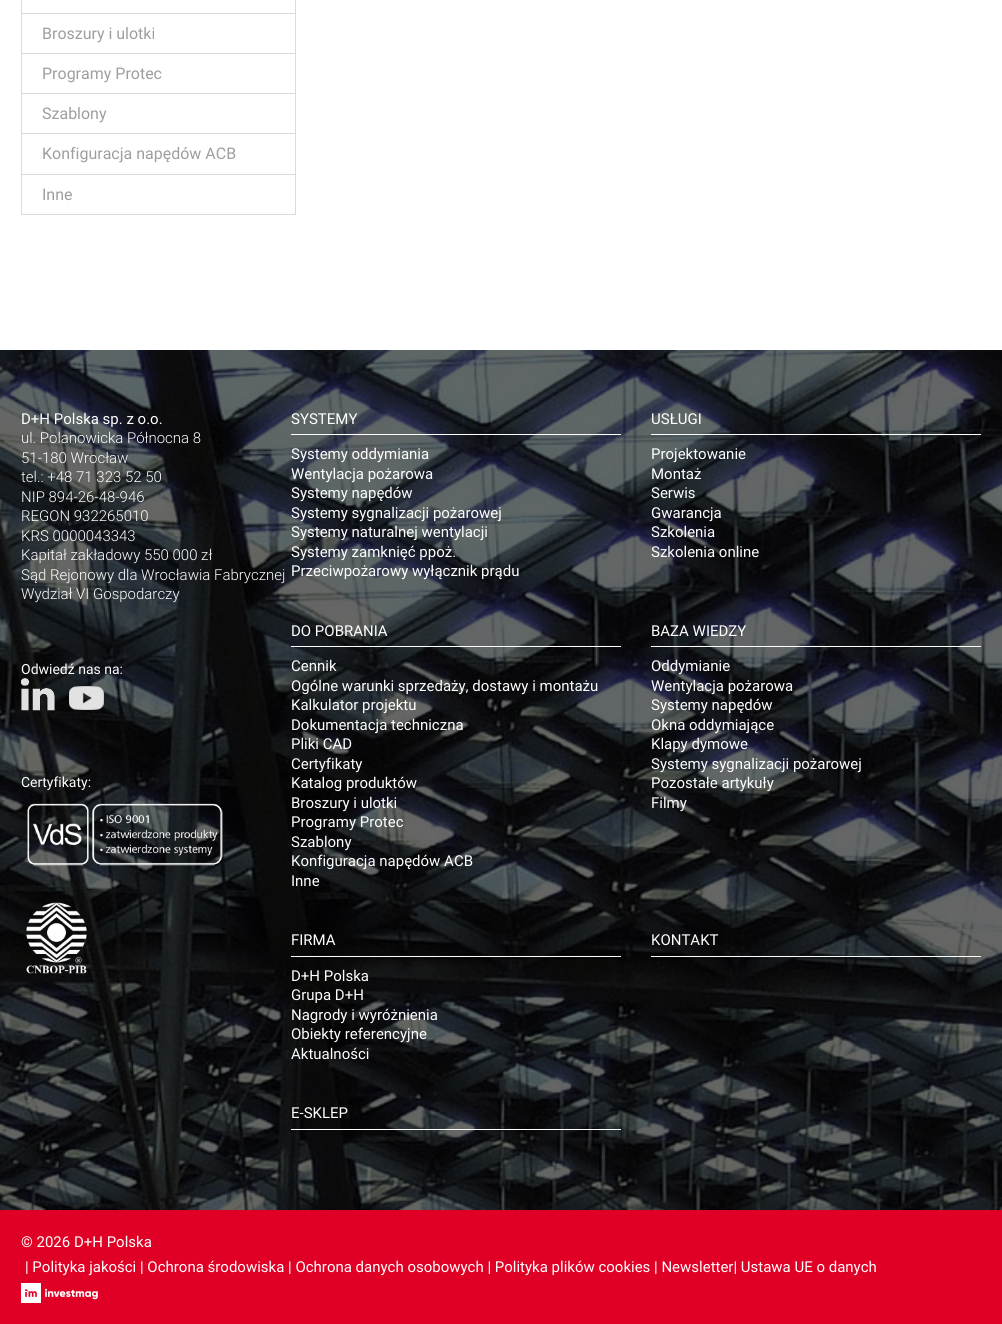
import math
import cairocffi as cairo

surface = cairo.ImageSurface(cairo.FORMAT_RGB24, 1002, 1324)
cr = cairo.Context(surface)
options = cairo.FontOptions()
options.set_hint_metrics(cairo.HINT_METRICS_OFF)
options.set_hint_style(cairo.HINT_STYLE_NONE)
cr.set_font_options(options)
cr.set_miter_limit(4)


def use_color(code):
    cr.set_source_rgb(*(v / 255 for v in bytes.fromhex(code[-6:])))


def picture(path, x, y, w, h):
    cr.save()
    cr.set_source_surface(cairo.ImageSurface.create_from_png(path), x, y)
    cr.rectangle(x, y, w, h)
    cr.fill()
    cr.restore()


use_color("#ffffff")
cr.paint()
use_color("#dadada")
cr.rectangle(295, 0, 1, 14)
cr.fill()
cr.rectangle(21, 0, 1, 14)
cr.fill()
cr.rectangle(21, 13, 275, 1)
cr.fill()
cr.rectangle(295, 13, 1, 41)
cr.fill()
cr.rectangle(21, 13, 1, 41)
cr.fill()
cr.select_font_face("Roboto")
cr.set_font_size(16)
use_color("#9e9e9e")
cr.move_to(42, 39)
cr.show_text("Broszury i ulotki")
use_color("#dadada")
cr.rectangle(21, 53, 275, 1)
cr.fill()
cr.rectangle(295, 53, 1, 41)
cr.fill()
cr.rectangle(21, 53, 1, 41)
cr.fill()
use_color("#9e9e9e")
cr.move_to(42, 79)
cr.show_text("Programy Protec")
use_color("#dadada")
cr.rectangle(21, 93, 275, 1)
cr.fill()
cr.rectangle(295, 93, 1, 41)
cr.fill()
cr.rectangle(21, 93, 1, 41)
cr.fill()
use_color("#9e9e9e")
cr.move_to(42, 119)
cr.show_text("Szablony")
use_color("#dadada")
cr.rectangle(21, 133, 275, 1)
cr.fill()
cr.rectangle(295, 133, 1, 42)
cr.fill()
cr.rectangle(21, 133, 1, 42)
cr.fill()
use_color("#9e9e9e")
cr.move_to(42, 159)
cr.show_text("Konfiguracja napędów ACB")
use_color("#dadada")
cr.rectangle(21, 174, 275, 1)
cr.fill()
cr.rectangle(295, 174, 1, 41)
cr.fill()
cr.rectangle(21, 174, 1, 41)
cr.fill()
cr.rectangle(22, 214, 273, 1)
cr.fill()
use_color("#9e9e9e")
cr.move_to(42, 200)
cr.show_text("Inne")
picture("img1.png", 0, 350, 1002, 860)
cr.set_font_size(15)
use_color("#ffffff")
cr.move_to(21, 424)
cr.show_text("D+H Polska sp. z o.o.")
cr.select_font_face("Roboto Light")
cr.move_to(21, 443)
cr.show_text("ul. Polanowicka Północna 8")
cr.move_to(21, 463)
cr.show_text("51-180 Wrocław")
cr.move_to(21, 482)
cr.show_text("tel.: +48 71 323 52 50")
cr.move_to(21, 502)
cr.show_text("NIP 894-26-48-946")
cr.move_to(21, 521)
cr.show_text("REGON 932265010")
cr.move_to(21, 541)
cr.show_text("KRS 0000043343")
cr.move_to(21, 560)
cr.show_text("Kapitał zakładowy 550 000 zł")
cr.move_to(21, 580)
cr.show_text("Sąd Rejonowy dla Wrocławia Fabrycznej")
cr.move_to(21, 599)
cr.show_text("Wydział VI Gospodarczy")
cr.select_font_face("Roboto")
cr.set_font_size(14)
cr.move_to(21, 674)
cr.show_text("Odwiedź nas na:")
picture("img2.png", 21, 678, 34, 33)
picture("img3.png", 69, 686, 35, 24)
cr.move_to(21, 787)
cr.show_text("Certyfikaty:")
picture("img4.png", 27, 803, 196, 63)
picture("img5.png", 26, 902, 61, 72)
cr.rectangle(291, 434, 330, 1)
cr.fill()
cr.set_font_size(15)
cr.move_to(291, 424)
cr.show_text("SYSTEMY")
cr.move_to(291, 459)
cr.show_text("Systemy oddymiania")
cr.move_to(291, 479)
cr.show_text("Wentylacja pożarowa")
cr.move_to(291, 498)
cr.show_text("Systemy napędów")
cr.move_to(291, 518)
cr.show_text("Systemy sygnalizacji pożarowej")
cr.move_to(291, 537)
cr.show_text("Systemy naturalnej wentylacji")
cr.move_to(291, 557)
cr.show_text("Systemy zamknięć ppoż.")
cr.move_to(291, 576)
cr.show_text("Przeciwpożarowy wyłącznik prądu")
cr.rectangle(651, 434, 330, 1)
cr.fill()
cr.move_to(651, 424)
cr.show_text("USŁUGI")
cr.move_to(651, 459)
cr.show_text("Projektowanie")
cr.move_to(651, 479)
cr.show_text("Montaż")
cr.move_to(651, 498)
cr.show_text("Serwis")
cr.move_to(651, 518)
cr.show_text("Gwarancja")
cr.move_to(651, 537)
cr.show_text("Szkolenia")
cr.move_to(651, 557)
cr.show_text("Szkolenia online")
cr.rectangle(291, 646, 330, 1)
cr.fill()
cr.move_to(291, 636)
cr.show_text("DO POBRANIA")
cr.move_to(291, 671)
cr.show_text("Cennik")
cr.move_to(291, 691)
cr.show_text("Ogólne warunki sprzedaży, dostawy i montażu")
cr.move_to(291, 710)
cr.show_text("Kalkulator projektu")
cr.move_to(291, 730)
cr.show_text("Dokumentacja techniczna")
cr.move_to(291, 749)
cr.show_text("Pliki CAD")
cr.move_to(291, 769)
cr.show_text("Certyfikaty")
cr.move_to(291, 788)
cr.show_text("Katalog produktów")
cr.move_to(291, 808)
cr.show_text("Broszury i ulotki")
cr.move_to(291, 827)
cr.show_text("Programy Protec")
cr.move_to(291, 847)
cr.show_text("Szablony")
cr.move_to(291, 866)
cr.show_text("Konfiguracja napędów ACB")
cr.move_to(291, 886)
cr.show_text("Inne")
cr.rectangle(651, 646, 330, 1)
cr.fill()
cr.move_to(651, 636)
cr.show_text("BAZA WIEDZY")
cr.move_to(651, 671)
cr.show_text("Oddymianie")
cr.move_to(651, 691)
cr.show_text("Wentylacja pożarowa")
cr.move_to(651, 710)
cr.show_text("Systemy napędów")
cr.move_to(651, 730)
cr.show_text("Okna oddymiające")
cr.move_to(651, 749)
cr.show_text("Klapy dymowe")
cr.move_to(651, 769)
cr.show_text("Systemy sygnalizacji pożarowej")
cr.move_to(651, 788)
cr.show_text("Pozostałe artykuły")
cr.move_to(651, 808)
cr.show_text("Filmy")
cr.rectangle(291, 956, 330, 1)
cr.fill()
cr.move_to(291, 945)
cr.show_text("FIRMA")
cr.move_to(291, 981)
cr.show_text("D+H Polska")
cr.move_to(291, 1000)
cr.show_text("Grupa D+H")
cr.move_to(291, 1020)
cr.show_text("Nagrody i wyróżnienia")
cr.move_to(291, 1039)
cr.show_text("Obiekty referencyjne")
cr.move_to(291, 1059)
cr.show_text("Aktualności")
cr.rectangle(651, 956, 330, 1)
cr.fill()
cr.move_to(651, 945)
cr.show_text("KONTAKT")
cr.rectangle(291, 1129, 330, 1)
cr.fill()
cr.move_to(291, 1118)
cr.show_text("E-SKLEP")
use_color("#e10025")
cr.rectangle(0, 1210, 1002, 114)
cr.fill()
use_color("#ffffff")
cr.move_to(21, 1247)
cr.show_text("© 2026 D+H Polska")
cr.move_to(25, 1272)
cr.show_text("| Polityka jakości | Ochrona środowiska | Ochrona danych osobowych | Polityka plików cookies | Newsletter| Ustawa UE o danych")
picture("img6.png", 21, 1283, 77, 20)
surface.write_to_png("result.png")
